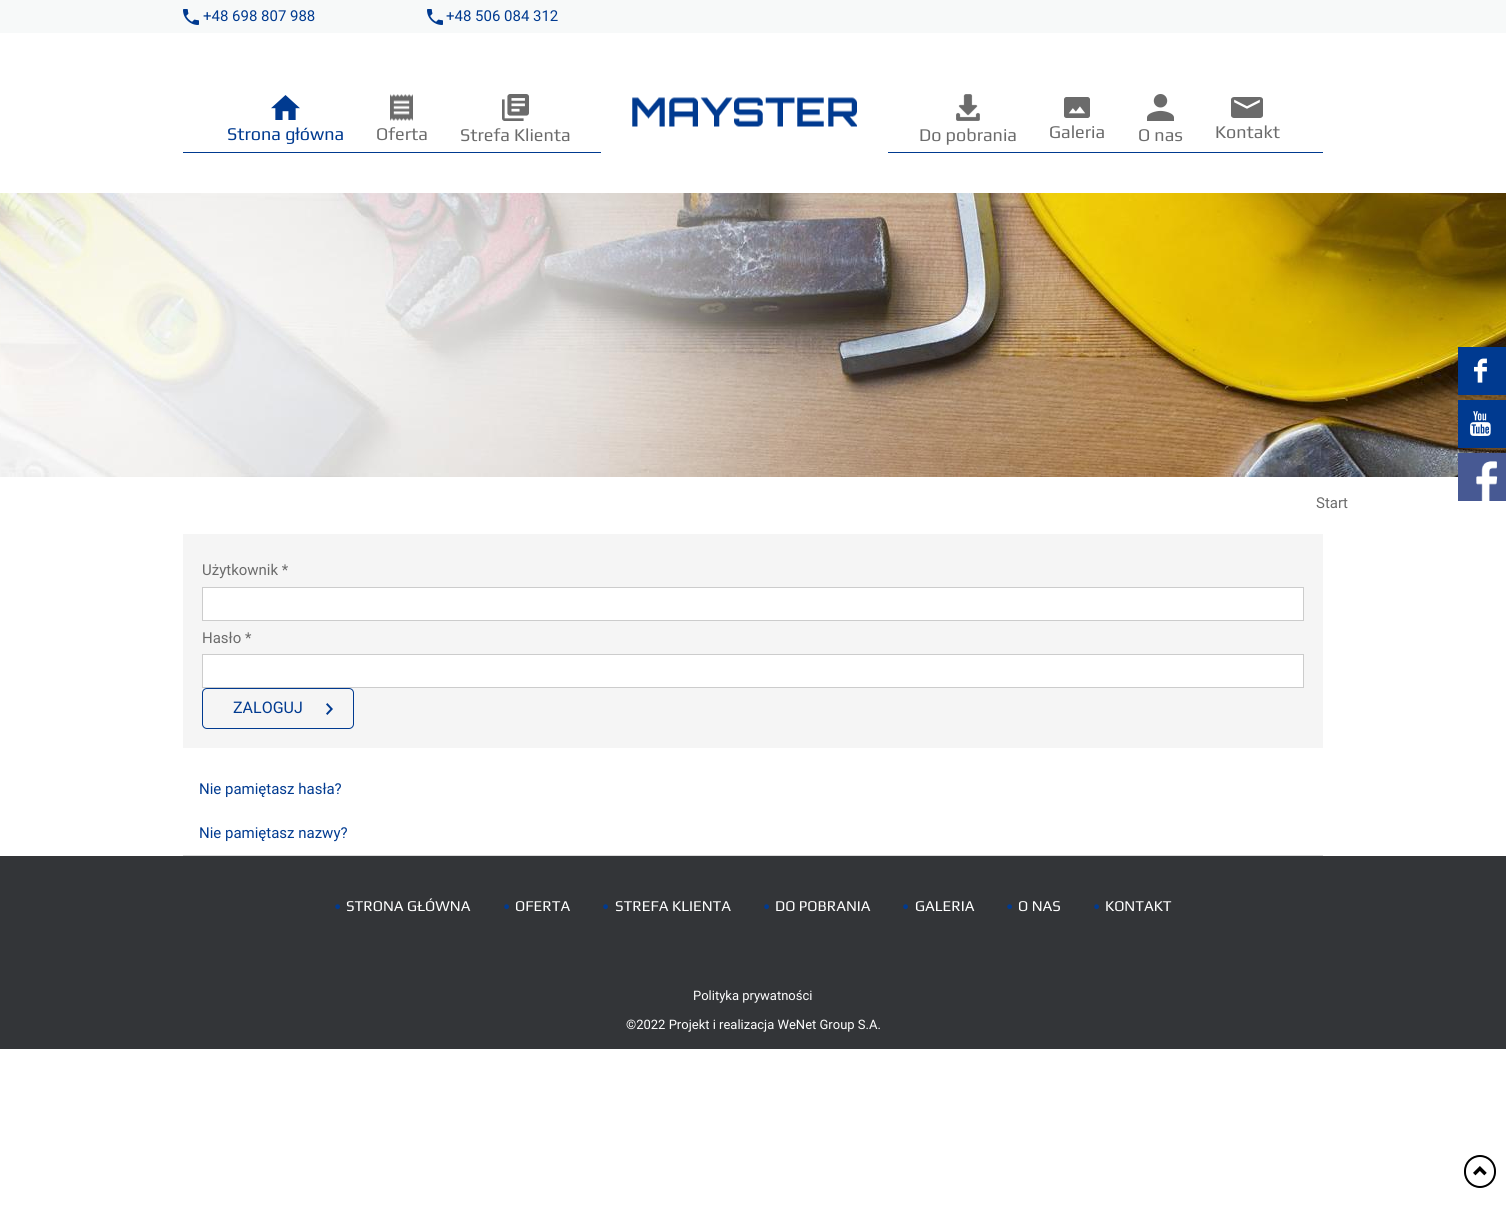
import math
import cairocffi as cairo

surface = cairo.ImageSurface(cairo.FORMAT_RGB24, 1506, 1227)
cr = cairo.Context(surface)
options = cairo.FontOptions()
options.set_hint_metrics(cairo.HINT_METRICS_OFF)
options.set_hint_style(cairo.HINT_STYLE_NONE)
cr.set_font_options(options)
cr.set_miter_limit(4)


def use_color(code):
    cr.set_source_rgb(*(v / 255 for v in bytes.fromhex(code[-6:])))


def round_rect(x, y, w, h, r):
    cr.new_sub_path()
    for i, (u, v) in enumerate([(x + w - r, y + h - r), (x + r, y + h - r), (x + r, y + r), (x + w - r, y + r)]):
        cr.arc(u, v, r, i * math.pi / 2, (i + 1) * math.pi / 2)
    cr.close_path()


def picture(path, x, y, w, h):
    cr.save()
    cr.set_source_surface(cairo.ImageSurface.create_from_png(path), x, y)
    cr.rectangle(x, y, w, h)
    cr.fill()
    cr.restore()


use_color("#ffffff")
cr.paint()
use_color("#f7f9f9")
cr.rectangle(0, 0, 1506, 33)
cr.fill()
picture("img1.png", 183, 9, 16, 16)
cr.select_font_face("Roboto")
cr.set_font_size(15)
use_color("#003a90")
cr.move_to(203, 21)
cr.show_text("+48 698 807 988")
picture("img1.png", 427, 9, 16, 16)
cr.move_to(446, 21)
cr.show_text("+48 506 084 312")
picture("img2.png", 271, 95, 29, 25)
cr.select_font_face("Play")
cr.set_font_size(18)
cr.move_to(227, 140)
cr.show_text("Strona główna")
picture("img3.png", 390, 94, 23, 27)
use_color("#6b6b6b")
cr.move_to(376, 140)
cr.show_text("Oferta")
picture("img4.png", 502, 94, 27, 27)
cr.move_to(460, 141)
cr.show_text("Strefa Klienta")
use_color("#003a90")
cr.rectangle(183, 152, 1140, 1)
cr.fill()
use_color("#ffffff")
cr.rectangle(601, 152, 287, 1)
cr.fill()
picture("img5.png", 632, 97, 225, 30)
picture("img6.png", 956, 94, 24, 27)
use_color("#6b6b6b")
cr.move_to(919, 141)
cr.show_text("Do pobrania")
picture("img7.png", 1064, 97, 26, 21)
cr.move_to(1049, 138)
cr.show_text("Galeria")
picture("img8.png", 1147, 94, 27, 27)
cr.move_to(1138, 141)
cr.show_text("O nas")
picture("img9.png", 1231, 97, 32, 21)
cr.move_to(1215, 138)
cr.show_text("Kontakt")
picture("img10.png", 0, 193, 1506, 284)
cr.select_font_face("Roboto")
cr.set_font_size(15)
cr.move_to(1316, 508)
cr.show_text("Start")
use_color("#f5f5f5")
cr.rectangle(183, 534, 1140, 214)
cr.fill()
use_color("#6b6b6b")
cr.move_to(202, 575)
cr.show_text("Użytkownik *")
use_color("#ffffff")
cr.rectangle(202.5, 587.5, 1101, 33)
cr.fill_preserve()
use_color("#cccccc")
cr.set_line_width(1)
cr.stroke()
use_color("#6b6b6b")
cr.move_to(202, 643)
cr.show_text("Hasło *")
use_color("#ffffff")
cr.rectangle(202.5, 654.5, 1101, 33)
cr.fill_preserve()
use_color("#cccccc")
cr.stroke()
picture("img11.png", 326, 703, 7, 12)
round_rect(202.5, 688.5, 151, 40, 4.5)
use_color("#003a90")
cr.stroke()
cr.set_font_size(16)
cr.move_to(233, 713)
cr.show_text("ZALOGUJ")
use_color("#dddddd")
cr.rectangle(183, 855, 1140, 1)
cr.fill()
cr.set_font_size(15)
use_color("#003a90")
cr.move_to(199, 794)
cr.show_text("Nie pamiętasz hasła?")
cr.move_to(199, 838)
cr.show_text("Nie pamiętasz nazwy?")
use_color("#333538")
cr.rectangle(0, 856, 1506, 193)
cr.fill()
cr.select_font_face("Play")
use_color("#003a90")
cr.move_to(334, 911)
cr.show_text("•")
use_color("#ffffff")
cr.move_to(346, 911)
cr.show_text("STRONA GŁÓWNA")
use_color("#003a90")
cr.move_to(503, 911)
cr.show_text("•")
use_color("#ffffff")
cr.move_to(515, 911)
cr.show_text("OFERTA")
use_color("#003a90")
cr.move_to(602, 911)
cr.show_text("•")
use_color("#ffffff")
cr.move_to(615, 911)
cr.show_text("STREFA KLIENTA")
use_color("#003a90")
cr.move_to(763, 911)
cr.show_text("•")
use_color("#ffffff")
cr.move_to(775, 911)
cr.show_text("DO POBRANIA")
use_color("#003a90")
cr.move_to(902, 911)
cr.show_text("•")
use_color("#ffffff")
cr.move_to(915, 911)
cr.show_text("GALERIA")
use_color("#003a90")
cr.move_to(1006, 911)
cr.show_text("•")
use_color("#ffffff")
cr.move_to(1018, 911)
cr.show_text("O NAS")
use_color("#003a90")
cr.move_to(1093, 911)
cr.show_text("•")
use_color("#ffffff")
cr.move_to(1105, 911)
cr.show_text("KONTAKT")
cr.select_font_face("Roboto")
cr.set_font_size(13)
cr.move_to(693, 1000)
cr.show_text("Polityka prywatności")
cr.move_to(626, 1029)
cr.show_text("©2022 Projekt i realizacja WeNet Group S.A.")
round_rect(1465, 1156, 30, 31, 15)
use_color("#000000")
cr.set_line_width(2)
cr.stroke()
picture("img12.png", 1473, 1166, 14, 10)
use_color("#003a90")
cr.rectangle(1458, 347, 48, 48)
cr.fill()
picture("img13.png", 1474, 358, 13, 25)
cr.rectangle(1458, 400, 48, 48)
cr.fill()
picture("img14.png", 1470, 411, 21, 25)
use_color("#ffffff")
cr.rectangle(1476, 461, 22, 16)
cr.fill()
picture("img15.png", 1458, 453, 48, 48)
surface.write_to_png("result.png")
